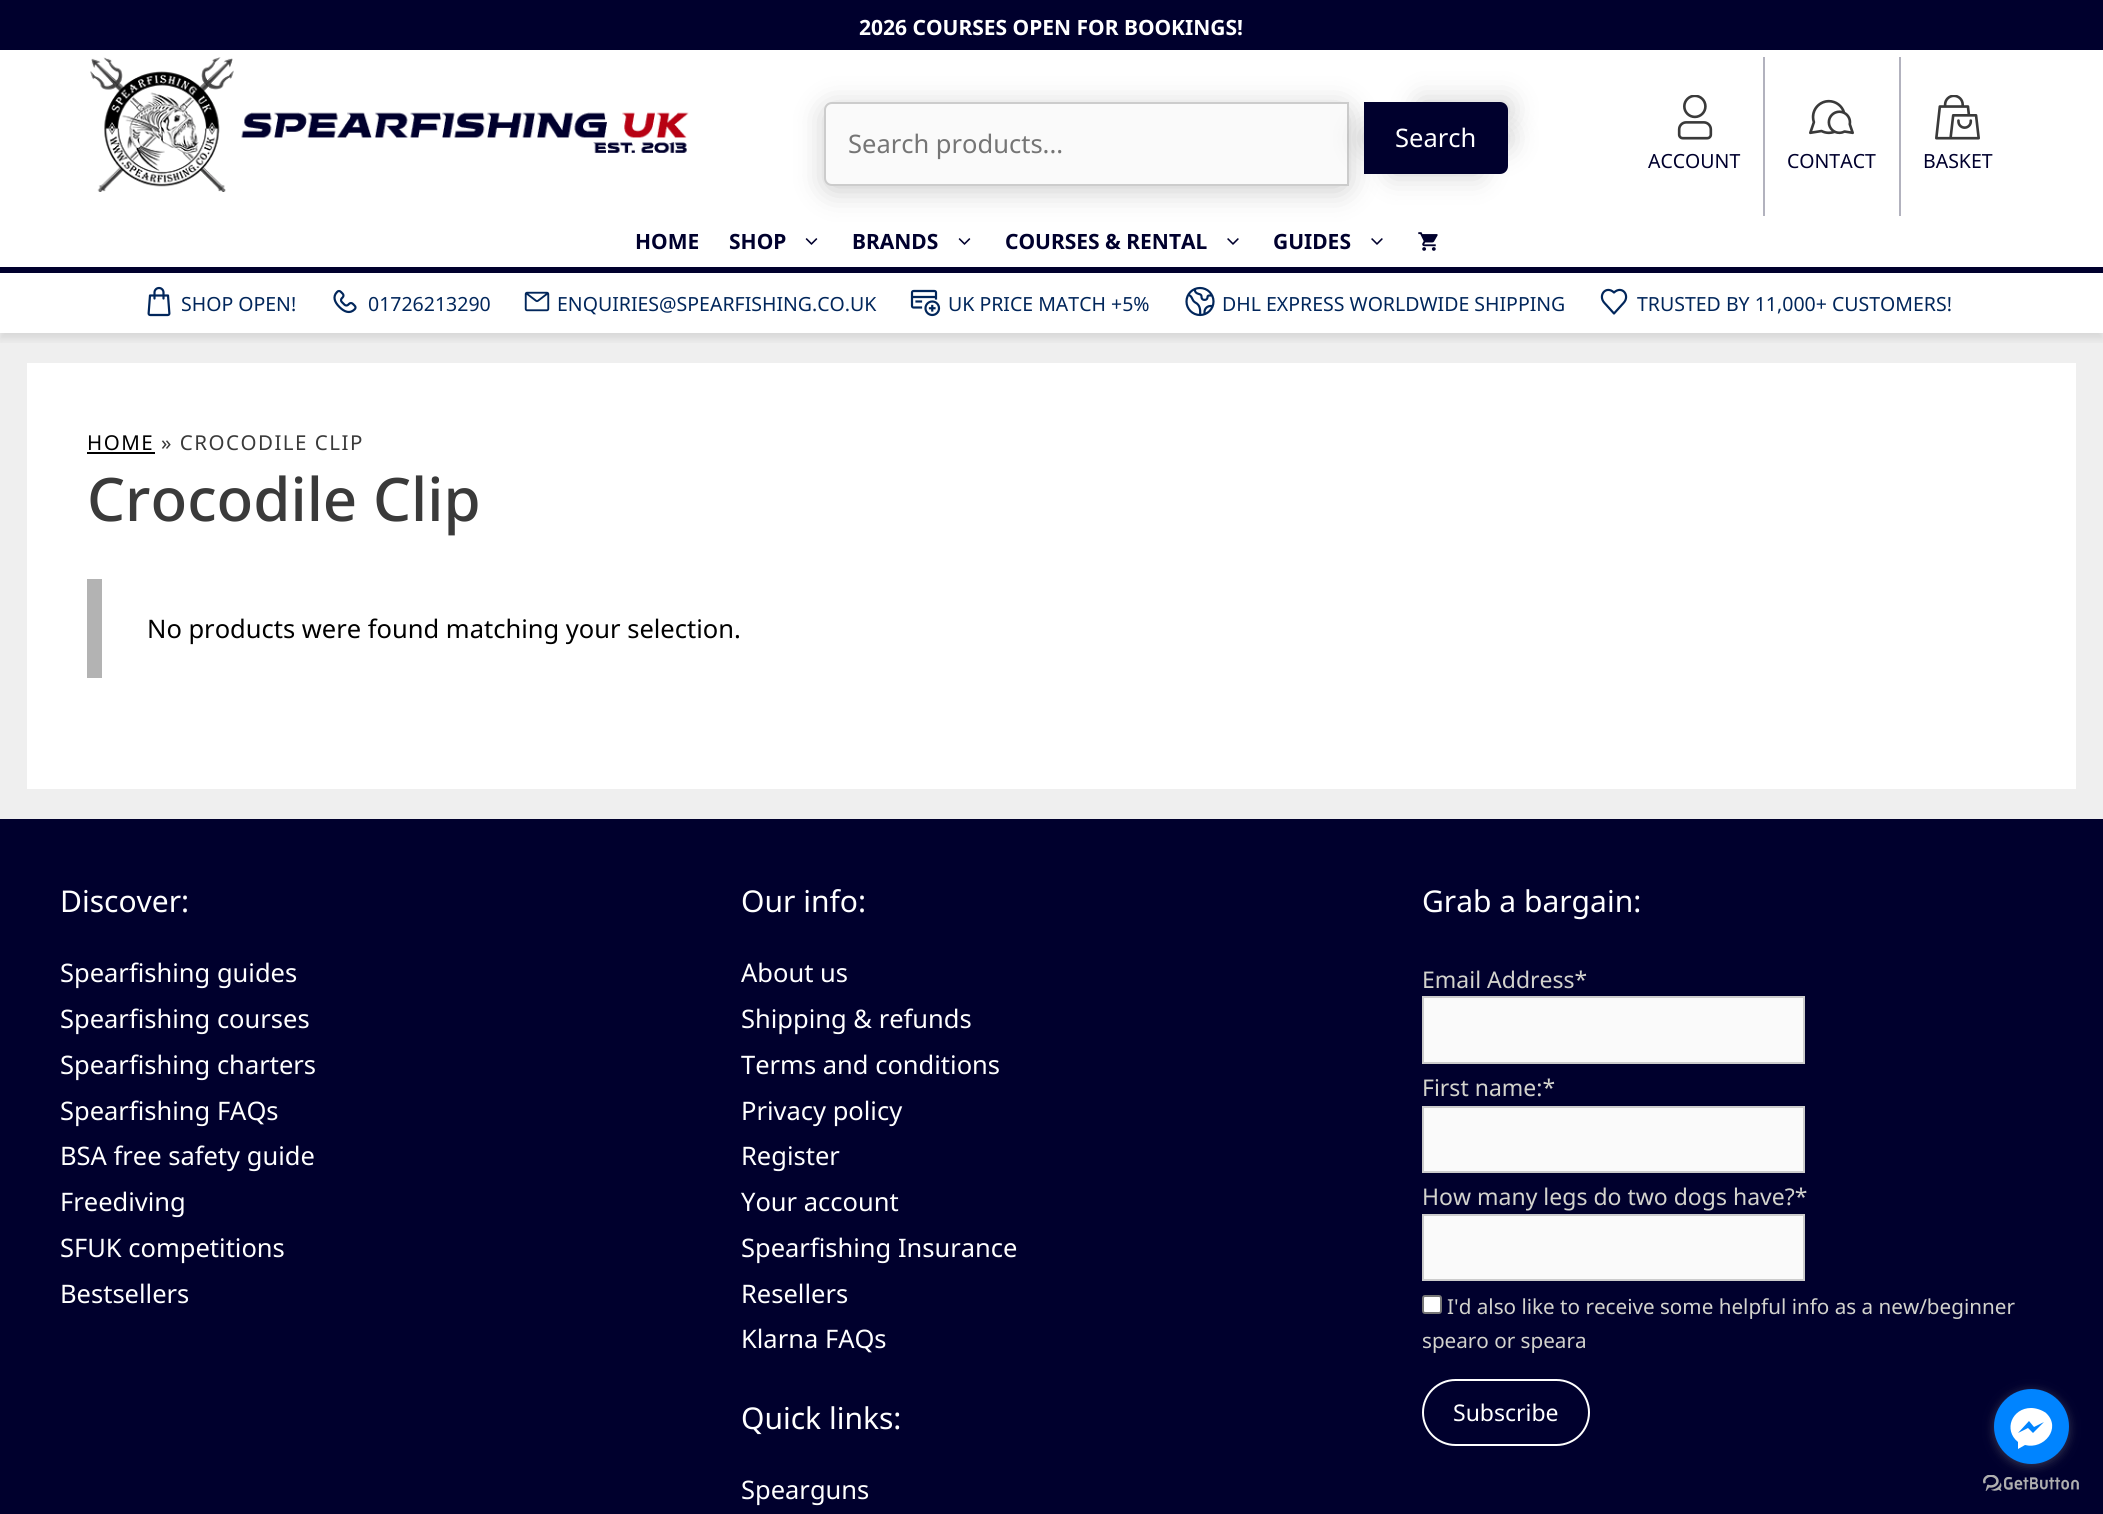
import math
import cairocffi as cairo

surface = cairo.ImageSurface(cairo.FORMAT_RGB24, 2103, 1514)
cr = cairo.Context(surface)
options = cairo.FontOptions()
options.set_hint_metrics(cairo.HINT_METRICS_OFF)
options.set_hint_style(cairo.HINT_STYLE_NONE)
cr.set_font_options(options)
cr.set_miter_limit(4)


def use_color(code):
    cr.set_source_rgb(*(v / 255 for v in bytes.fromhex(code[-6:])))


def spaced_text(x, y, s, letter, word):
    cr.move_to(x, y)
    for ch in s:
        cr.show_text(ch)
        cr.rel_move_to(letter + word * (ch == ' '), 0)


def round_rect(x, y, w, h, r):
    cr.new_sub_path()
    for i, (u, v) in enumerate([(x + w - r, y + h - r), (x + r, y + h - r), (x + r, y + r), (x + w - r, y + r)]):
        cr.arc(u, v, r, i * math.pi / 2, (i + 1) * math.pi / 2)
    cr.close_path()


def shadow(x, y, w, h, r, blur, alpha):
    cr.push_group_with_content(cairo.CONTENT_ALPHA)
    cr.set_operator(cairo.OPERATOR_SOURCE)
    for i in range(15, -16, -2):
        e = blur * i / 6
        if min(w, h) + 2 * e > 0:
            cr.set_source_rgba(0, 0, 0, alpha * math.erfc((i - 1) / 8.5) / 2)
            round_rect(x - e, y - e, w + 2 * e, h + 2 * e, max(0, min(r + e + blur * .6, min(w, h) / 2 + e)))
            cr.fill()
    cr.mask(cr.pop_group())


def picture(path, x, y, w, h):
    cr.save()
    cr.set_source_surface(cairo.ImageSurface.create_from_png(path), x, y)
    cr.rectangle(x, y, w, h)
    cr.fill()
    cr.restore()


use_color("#efefef")
cr.paint()
use_color("#00002d")
cr.rectangle(0, 0, 2103, 50)
cr.fill()
cr.select_font_face("Noto Sans", cairo.FONT_SLANT_NORMAL, cairo.FONT_WEIGHT_BOLD)
cr.set_font_size(21)
use_color("#ffffff")
cr.move_to(859, 35)
cr.show_text("2026 COURSES OPEN FOR BOOKINGS!")
cr.rectangle(0, 50, 2103, 217)
cr.fill()
picture("img1.png", 90, 57, 599, 135)
use_color("#000000")
shadow(824, 107, 525, 84, 8, 14.5, 0.2)
use_color("#fafafa")
cr.new_path()
cr.move_to(832, 103)
cr.line_to(1348, 103)
cr.line_to(1348, 185)
cr.line_to(832, 185)
cr.curve_to(828, 185, 825, 182, 825, 178)
cr.line_to(825, 110)
cr.curve_to(825, 106, 828, 103, 832, 103)
cr.close_path()
cr.fill_preserve()
use_color("#cccccc")
cr.stroke()
cr.select_font_face("Noto Sans")
cr.set_font_size(25.5)
use_color("#757575")
cr.move_to(848, 153)
cr.show_text("Search products...")
use_color("#000000")
shadow(1421, 102, 87, 15, 0, 14.5, 0.2)
shadow(1364, 131, 87, 15, 0, 14.5, 0.2)
shadow(1392, 159, 87, 15, 0, 14.5, 0.2)
shadow(1421, 131, 87, 15, 0, 14.5, 0.2)
use_color("#00002d")
cr.new_path()
cr.move_to(1364, 102)
cr.line_to(1500, 102)
cr.curve_to(1504.5, 102, 1508, 105.5, 1508, 110)
cr.line_to(1508, 166)
cr.curve_to(1508, 170.5, 1504.5, 174, 1500, 174)
cr.line_to(1364, 174)
cr.close_path()
cr.fill()
use_color("#ffffff")
cr.move_to(1395, 147)
cr.show_text("Search")
use_color("#b2b2be")
cr.rectangle(1763, 57, 2, 159)
cr.fill()
picture("img2.png", 1677, 95, 36, 45)
cr.set_font_size(19.5)
use_color("#00002d")
cr.move_to(1648, 168)
cr.show_text("ACCOUNT")
use_color("#b2b2be")
cr.rectangle(1899, 57, 2, 159)
cr.fill()
picture("img3.png", 1809, 99, 45, 36)
use_color("#00002d")
cr.move_to(1787, 168)
cr.show_text("CONTACT")
picture("img4.png", 1935, 95, 45, 45)
cr.move_to(1923, 168)
cr.show_text("BASKET")
cr.select_font_face("Noto Sans", cairo.FONT_SLANT_NORMAL, cairo.FONT_WEIGHT_BOLD)
cr.set_font_size(21)
cr.move_to(635, 249)
cr.show_text("HOME")
cr.move_to(729, 249)
cr.show_text("SHOP")
picture("img5.png", 805, 238, 13, 7)
cr.move_to(852, 249)
cr.show_text("BRANDS")
picture("img5.png", 958, 238, 13, 7)
cr.move_to(1005, 249)
cr.show_text("COURSES & RENTAL")
picture("img6.png", 1227, 238, 12, 7)
cr.move_to(1273, 249)
cr.show_text("GUIDES")
picture("img6.png", 1371, 238, 12, 7)
picture("img7.png", 1418, 232, 20, 19)
use_color("#ffffff")
cr.rectangle(0, 273, 2103, 60)
cr.fill()
cr.save()
cr.rectangle(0, 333, 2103, 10)
cr.clip()
use_color("#000000")
shadow(0, 273, 2103, 66, 0, 4.5, 0.1)
cr.restore()
use_color("#00002d")
cr.rectangle(0, 267, 2103, 6)
cr.fill()
picture("img8.png", 147, 286, 24, 31)
cr.select_font_face("Noto Sans")
cr.set_font_size(19.5)
use_color("#01265b")
cr.move_to(181, 311)
cr.show_text("SHOP OPEN!")
picture("img9.png", 333, 289, 24, 25)
cr.move_to(368, 311)
cr.show_text("01726213290")
picture("img10.png", 524, 291, 26, 21)
cr.move_to(557, 311)
cr.show_text("ENQUIRIES@SPEARFISHING.CO.UK")
picture("img11.png", 910, 289, 31, 28)
cr.move_to(948, 311)
cr.show_text("UK PRICE MATCH +5%")
picture("img12.png", 1185, 286, 30, 31)
cr.move_to(1222, 311)
cr.show_text("DHL EXPRESS WORLDWIDE SHIPPING")
cr.new_path()
cr.move_to(1614, 292.5)
cr.curve_to(1606, 285, 1597.5, 295.5, 1604.5, 303)
cr.line_to(1614, 313.5)
cr.line_to(1623.5, 303)
cr.curve_to(1630.5, 295.5, 1622, 285, 1614, 292.5)
cr.close_path()
cr.set_line_width(2.2)
cr.set_line_cap(cairo.LINE_CAP_ROUND)
cr.set_line_join(cairo.LINE_JOIN_ROUND)
cr.stroke()
cr.move_to(1637, 311)
cr.show_text("TRUSTED BY 11,000+ CUSTOMERS!")
use_color("#ffffff")
cr.rectangle(27, 363, 2049, 426)
cr.fill()
cr.set_font_size(20.5)
use_color("#000000")
spaced_text(87, 450, "HOME", 1.5, 0)
cr.rectangle(87, 452, 68, 2)
cr.fill()
use_color("#3a3a3a")
spaced_text(161, 450, "» CROCODILE CLIP", 1.5, 0)
cr.select_font_face("Noto Sans Medium")
cr.set_font_size(60)
cr.move_to(87, 521)
cr.show_text("Crocodile Clip")
use_color("#b3b3b3")
cr.rectangle(87, 579, 15, 99)
cr.fill()
cr.select_font_face("Noto Sans")
cr.set_font_size(25.5)
use_color("#000000")
cr.move_to(147, 638)
cr.show_text("No products were found matching your selection.")
use_color("#00002d")
cr.rectangle(0, 819, 2103, 695)
cr.fill()
cr.set_font_size(30)
use_color("#ffffff")
cr.move_to(60, 912)
cr.show_text("Discover:")
cr.set_font_size(25.5)
cr.move_to(60, 982)
cr.show_text("Spearfishing guides")
cr.move_to(60, 1028)
cr.show_text("Spearfishing courses")
cr.move_to(60, 1074)
cr.show_text("Spearfishing charters")
cr.move_to(60, 1120)
cr.show_text("Spearfishing FAQs")
cr.move_to(60, 1165)
cr.show_text("BSA free safety guide")
cr.move_to(60, 1211)
cr.show_text("Freediving")
cr.move_to(60, 1257)
cr.show_text("SFUK competitions")
cr.move_to(60, 1303)
cr.show_text("Bestsellers")
cr.set_font_size(30)
cr.move_to(741, 912)
cr.show_text("Our info:")
cr.set_font_size(25.5)
cr.move_to(741, 982)
cr.show_text("About us")
cr.move_to(741, 1028)
cr.show_text("Shipping & refunds")
cr.move_to(741, 1074)
cr.show_text("Terms and conditions")
cr.move_to(741, 1120)
cr.show_text("Privacy policy")
cr.move_to(741, 1165)
cr.show_text("Register")
cr.move_to(741, 1211)
cr.show_text("Your account")
cr.move_to(741, 1257)
cr.show_text("Spearfishing Insurance")
cr.move_to(741, 1303)
cr.show_text("Resellers")
cr.move_to(741, 1348)
cr.show_text("Klarna FAQs")
cr.set_font_size(30)
cr.move_to(741, 1429)
cr.show_text("Quick links:")
cr.set_font_size(25.5)
cr.move_to(741, 1499)
cr.show_text("Spearguns")
cr.set_font_size(30)
cr.move_to(1422, 912)
cr.show_text("Grab a bargain:")
cr.set_font_size(23)
use_color("#d3d3cd")
cr.move_to(1422, 988)
cr.show_text("Email Address*")
use_color("#fafafa")
cr.rectangle(1423, 997, 381, 66)
cr.fill_preserve()
use_color("#cccccc")
cr.set_line_width(2)
cr.set_line_cap(cairo.LINE_CAP_BUTT)
cr.set_line_join(cairo.LINE_JOIN_MITER)
cr.stroke()
use_color("#d3d3cd")
cr.move_to(1422, 1096)
cr.show_text("First name:*")
use_color("#fafafa")
cr.rectangle(1423, 1107, 381, 65)
cr.fill_preserve()
use_color("#cccccc")
cr.stroke()
use_color("#d3d3cd")
cr.move_to(1422, 1205)
cr.show_text("How many legs do two dogs have?*")
use_color("#fafafa")
cr.rectangle(1423, 1215, 381, 65)
cr.fill_preserve()
use_color("#cccccc")
cr.stroke()
use_color("#ffffff")
round_rect(1423, 1296, 18, 17, 2)
cr.fill_preserve()
use_color("#767676")
cr.stroke()
cr.set_font_size(20.65)
use_color("#d3d3cd")
cr.move_to(1447, 1314)
cr.show_text("I'd also like to receive some helpful info as a new/beginner")
cr.move_to(1422, 1348)
cr.show_text("spearo or speara")
round_rect(1423, 1380, 166, 65, 32.5)
use_color("#ffffff")
cr.stroke()
cr.set_font_size(23)
cr.move_to(1453, 1421)
cr.show_text("Subscribe")
picture("img13.png", 1983, 1475, 96, 16)
use_color("#888888")
shadow(1994, 1391, 75, 75, 37.5, 5, 0.4)
use_color("#0084ff")
cr.arc(2031.5, 1426.5, 37.5, 0, 2 * math.pi)
cr.fill()
use_color("#ffffff")
cr.new_path()
cr.move_to(2031, 1408)
cr.curve_to(2012, 1408, 2003, 1430, 2018, 1442)
cr.line_to(2018, 1449)
cr.line_to(2025, 1445)
cr.curve_to(2044, 1450, 2062, 1428, 2046, 1413)
cr.curve_to(2042, 1410, 2036, 1408, 2031, 1408)
cr.close_path()
cr.move_to(2033, 1433)
cr.line_to(2028, 1428)
cr.line_to(2018, 1433)
cr.line_to(2029, 1421)
cr.line_to(2034, 1427)
cr.line_to(2044, 1422)
cr.close_path()
cr.fill()
surface.write_to_png("result.png")
